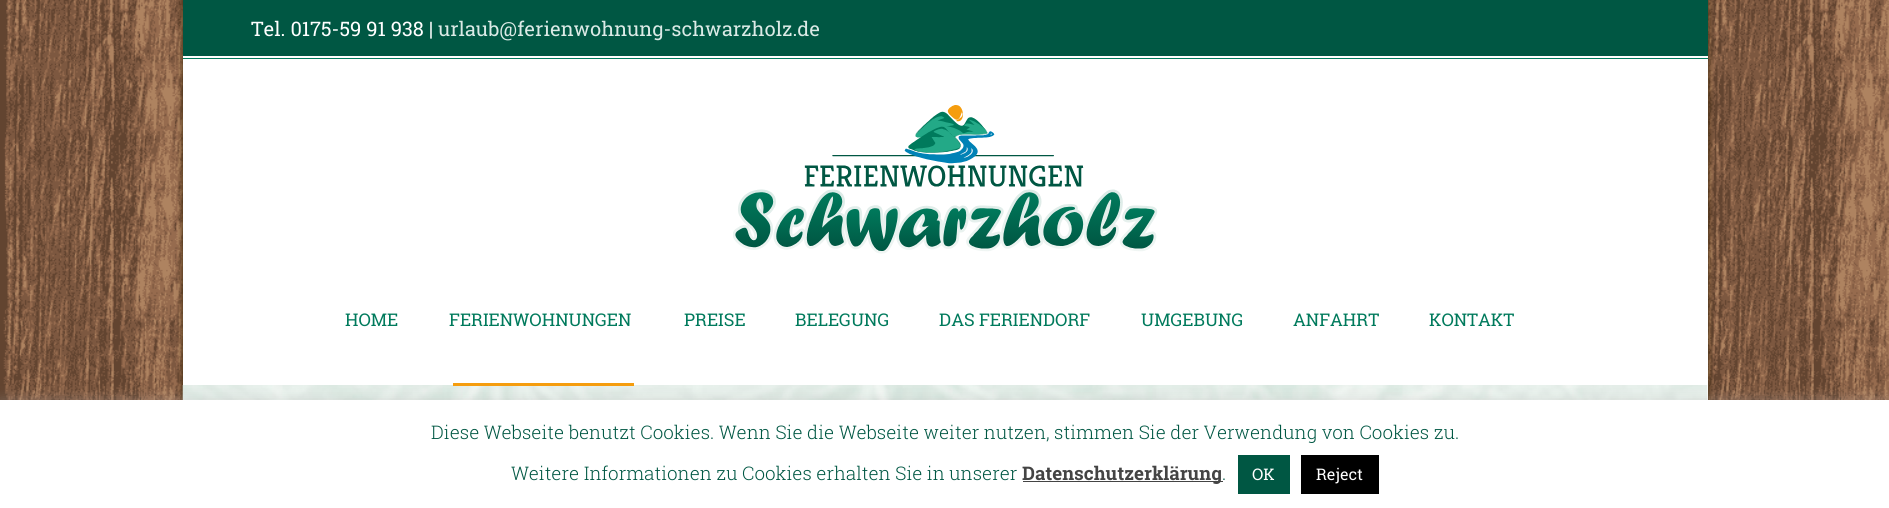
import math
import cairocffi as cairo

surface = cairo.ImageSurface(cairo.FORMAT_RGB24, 1889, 508)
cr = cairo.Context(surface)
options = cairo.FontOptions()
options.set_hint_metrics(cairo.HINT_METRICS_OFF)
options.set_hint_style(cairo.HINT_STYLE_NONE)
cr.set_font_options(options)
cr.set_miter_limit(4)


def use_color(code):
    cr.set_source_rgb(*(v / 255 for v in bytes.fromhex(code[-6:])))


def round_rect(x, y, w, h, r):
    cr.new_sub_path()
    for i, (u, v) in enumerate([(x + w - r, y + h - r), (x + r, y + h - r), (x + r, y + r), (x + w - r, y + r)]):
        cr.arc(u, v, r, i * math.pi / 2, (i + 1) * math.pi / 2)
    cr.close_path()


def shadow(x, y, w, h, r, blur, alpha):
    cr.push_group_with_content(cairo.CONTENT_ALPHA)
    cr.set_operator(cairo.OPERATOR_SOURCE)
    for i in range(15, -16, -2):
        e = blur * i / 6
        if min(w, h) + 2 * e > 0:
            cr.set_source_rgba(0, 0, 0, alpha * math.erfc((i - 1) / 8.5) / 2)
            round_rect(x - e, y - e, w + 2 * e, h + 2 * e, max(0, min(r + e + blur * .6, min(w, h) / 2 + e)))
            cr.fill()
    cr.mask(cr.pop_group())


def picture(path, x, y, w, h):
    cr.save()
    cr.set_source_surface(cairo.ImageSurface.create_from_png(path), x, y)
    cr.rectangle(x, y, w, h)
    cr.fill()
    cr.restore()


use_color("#ffffff")
cr.paint()
picture("img1.png", 0, 0, 1889, 400)
use_color("#311e00")
shadow(183, 0, 1525, 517, 0, 3, 1)
use_color("#ffffff")
cr.rectangle(183, 56, 1525, 344)
cr.fill()
use_color("#005743")
cr.rectangle(183, 0, 1525, 56)
cr.fill()
cr.select_font_face("Roboto Slab")
cr.set_font_size(20)
use_color("#ffffff")
cr.move_to(251, 36)
cr.show_text("Tel. 0175-59 91 938 |")
use_color("#dbeae6")
cr.move_to(438, 36)
cr.show_text("urlaub@ferienwohnung-schwarzholz.de")
use_color("#007a5c")
cr.rectangle(183, 58, 1525, 1)
cr.fill()
picture("img2.png", 733, 105, 425, 149)
cr.set_font_size(17.5)
cr.move_to(345, 326)
cr.show_text("HOME")
cr.move_to(449, 326)
cr.show_text("FERIENWOHNUNGEN")
cr.move_to(684, 326)
cr.show_text("PREISE")
cr.move_to(795, 326)
cr.show_text("BELEGUNG")
cr.move_to(939, 326)
cr.show_text("DAS FERIENDORF")
cr.move_to(1141, 326)
cr.show_text("UMGEBUNG")
cr.move_to(1293, 326)
cr.show_text("ANFAHRT")
cr.move_to(1429, 326)
cr.show_text("KONTAKT")
picture("img3.png", 182, 385, 1526, 15)
use_color("#f59d0e")
cr.rectangle(453, 383, 181, 3)
cr.fill()
use_color("#acabab")
shadow(0, 399, 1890, 109, 0, 6, 0.3)
use_color("#ffffff")
cr.rectangle(0, 400, 1889, 108)
cr.fill()
cr.select_font_face("Roboto Slab Light")
cr.set_font_size(18.75)
use_color("#005743")
cr.move_to(431, 439)
cr.show_text("Diese Webseite benutzt Cookies. Wenn Sie die Webseite weiter nutzen, stimmen Sie der Verwendung von Cookies zu.")
cr.move_to(511, 480)
cr.show_text("Weitere Informationen zu Cookies erhalten Sie in unserer")
use_color("#444444")
cr.rectangle(1023, 481, 200, 1)
cr.fill()
cr.select_font_face("Roboto Slab", cairo.FONT_SLANT_NORMAL, cairo.FONT_WEIGHT_BOLD)
cr.move_to(1022, 480)
cr.show_text("Datenschutzerklärung")
cr.select_font_face("Roboto Slab Light")
use_color("#005743")
cr.move_to(1222, 480)
cr.show_text(".")
cr.rectangle(1238, 455, 52, 39)
cr.fill()
cr.select_font_face("Roboto Slab")
cr.set_font_size(16)
use_color("#ffffff")
cr.move_to(1252, 480)
cr.show_text("OK")
use_color("#000000")
cr.rectangle(1301, 455, 78, 39)
cr.fill()
use_color("#ffffff")
cr.move_to(1316, 480)
cr.show_text("Reject")
surface.write_to_png("result.png")
